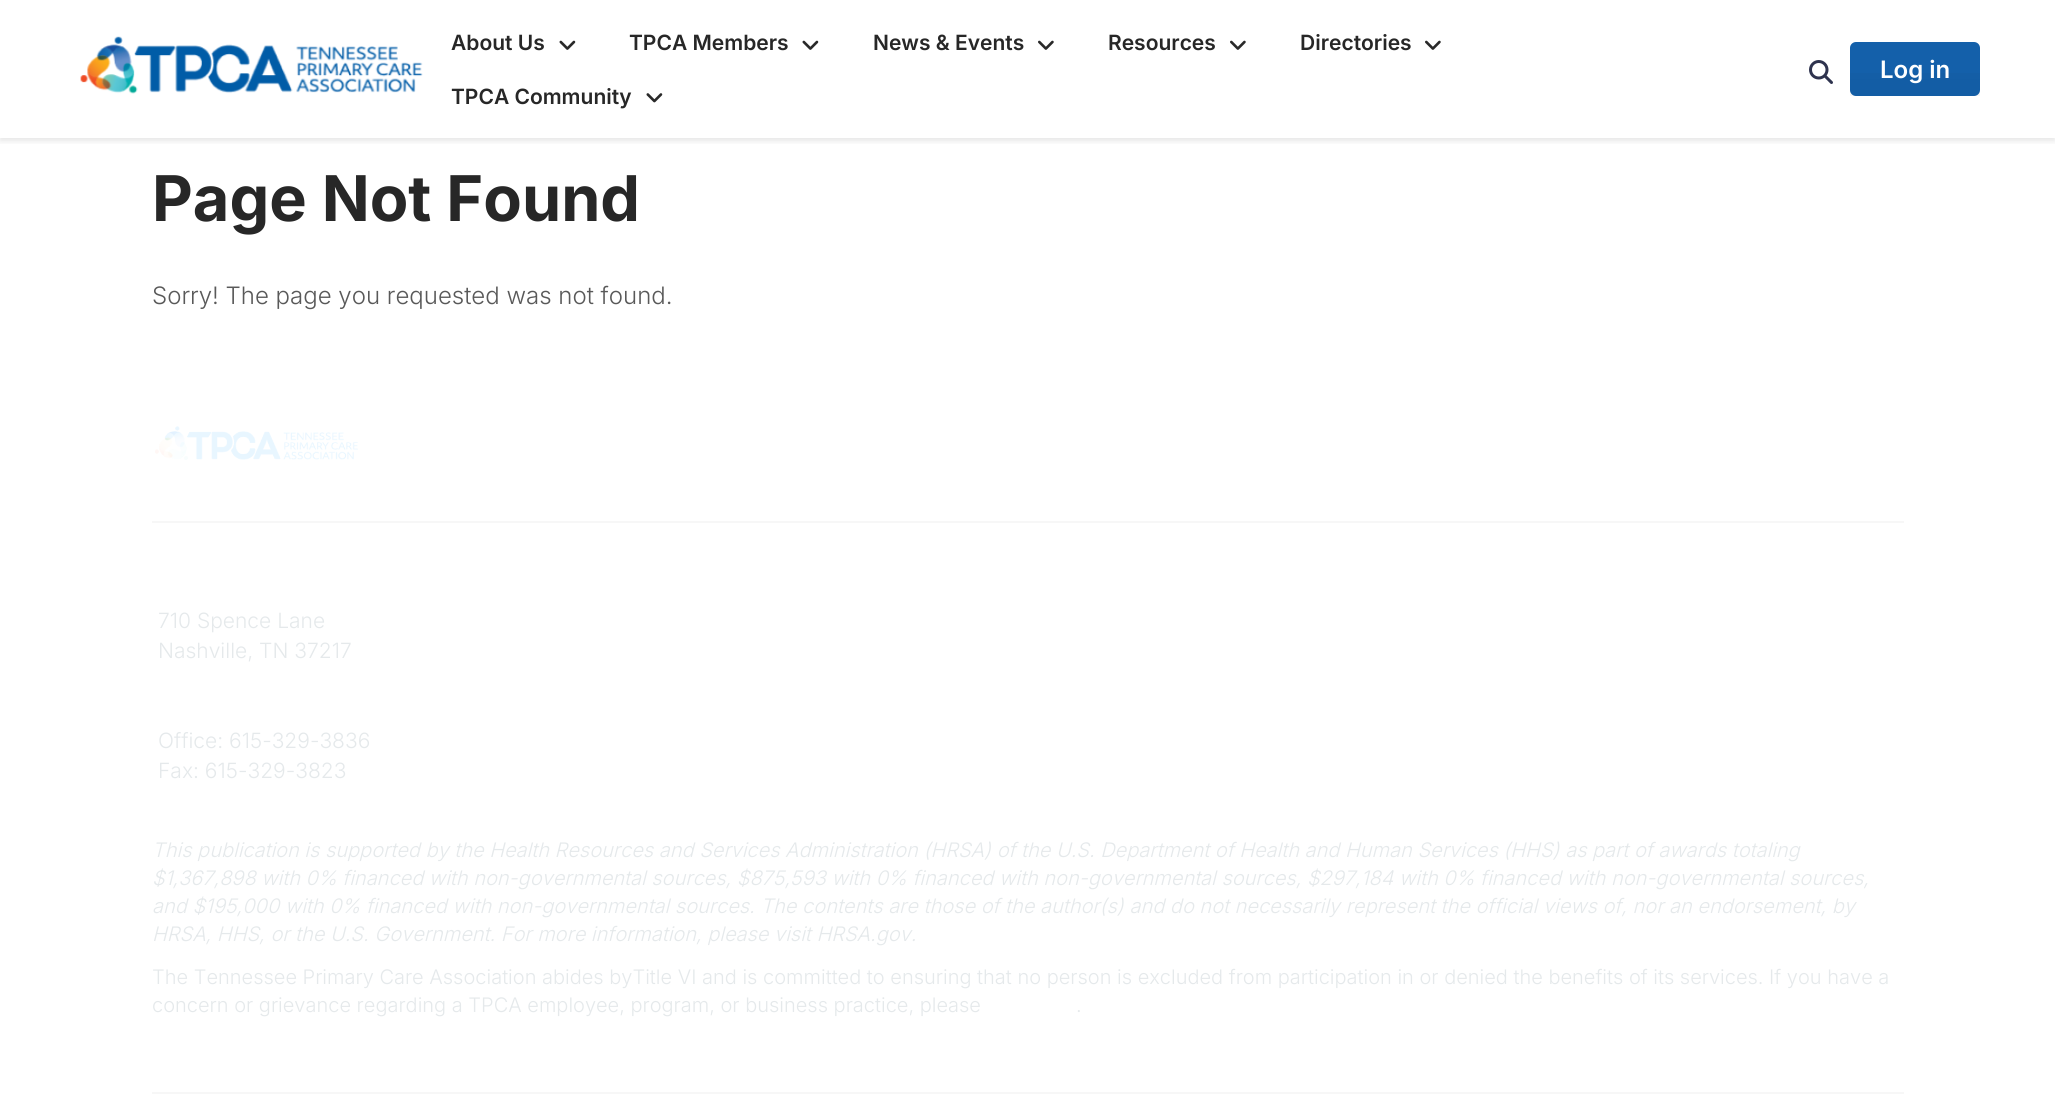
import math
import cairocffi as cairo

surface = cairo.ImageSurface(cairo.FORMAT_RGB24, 2055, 1097)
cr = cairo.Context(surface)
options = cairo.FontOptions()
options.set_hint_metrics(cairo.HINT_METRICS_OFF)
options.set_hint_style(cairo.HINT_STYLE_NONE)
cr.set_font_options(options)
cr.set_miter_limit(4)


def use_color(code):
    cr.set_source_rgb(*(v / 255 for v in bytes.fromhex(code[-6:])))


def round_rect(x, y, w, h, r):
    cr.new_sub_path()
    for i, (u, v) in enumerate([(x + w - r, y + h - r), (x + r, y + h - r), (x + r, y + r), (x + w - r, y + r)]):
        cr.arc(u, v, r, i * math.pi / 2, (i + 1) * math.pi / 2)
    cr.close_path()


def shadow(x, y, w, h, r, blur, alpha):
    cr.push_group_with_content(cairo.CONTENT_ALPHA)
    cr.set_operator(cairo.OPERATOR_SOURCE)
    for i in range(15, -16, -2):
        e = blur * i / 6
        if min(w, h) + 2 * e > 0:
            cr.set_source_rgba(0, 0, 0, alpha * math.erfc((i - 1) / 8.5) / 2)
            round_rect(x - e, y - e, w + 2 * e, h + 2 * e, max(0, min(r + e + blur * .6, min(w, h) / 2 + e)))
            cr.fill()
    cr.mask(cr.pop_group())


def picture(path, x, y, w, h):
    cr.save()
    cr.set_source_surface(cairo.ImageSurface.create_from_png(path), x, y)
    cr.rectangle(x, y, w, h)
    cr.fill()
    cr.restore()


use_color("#ffffff")
cr.paint()
cr.save()
cr.rectangle(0, 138, 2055, 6)
cr.clip()
use_color("#000000")
shadow(0, 3, 2055, 138, 0, 3, 0.1)
cr.restore()
picture("img1.png", 80, 36, 343, 58)
cr.select_font_face("Inter SemiBold")
cr.set_font_size(21)
use_color("#272727")
cr.move_to(451, 50)
cr.show_text("About Us")
picture("img2.png", 559, 40, 17, 10)
cr.move_to(629, 50)
cr.show_text("TPCA Members")
picture("img2.png", 802, 40, 17, 10)
cr.move_to(873, 50)
cr.show_text("News & Events")
picture("img3.png", 1038, 40, 16, 10)
cr.move_to(1108, 50)
cr.show_text("Resources")
picture("img3.png", 1230, 40, 16, 10)
cr.move_to(1300, 50)
cr.show_text("Directories")
picture("img3.png", 1425, 40, 16, 10)
cr.move_to(451, 104)
cr.show_text("TPCA Community")
picture("img4.png", 646, 93, 17, 10)
picture("img5.png", 1809, 60, 24, 24)
use_color("#1460aa")
round_rect(1850, 42, 130, 54, 6)
cr.fill()
gradient = cairo.LinearGradient(1915, 42, 1915, 474)
gradient.add_color_stop_rgba(0, 0, 0, 0, 0)
gradient.add_color_stop_rgba(1, 0, 0, 0, 0.3)
cr.set_source(gradient)
cr.rectangle(1850, 73, 130, 23)
cr.fill()
cr.set_font_size(24)
use_color("#ffffff")
cr.move_to(1880, 78)
cr.show_text("Log in")
cr.select_font_face("Inter", cairo.FONT_SLANT_NORMAL, cairo.FONT_WEIGHT_BOLD)
cr.set_font_size(63)
use_color("#272727")
cr.move_to(152, 221)
cr.show_text("Page Not Found")
cr.select_font_face("Inter Light")
cr.set_font_size(24)
use_color("#595959")
cr.move_to(152, 304)
cr.show_text("Sorry! The page you requested was not found.")
picture("img6.png", 155, 426, 203, 34)
use_color("#f7f7f7")
cr.rectangle(152, 521, 1752, 2)
cr.fill()
cr.set_font_size(21)
use_color("#e5e9eb")
cr.move_to(158, 628)
cr.show_text("710 Spence Lane")
cr.move_to(158, 658)
cr.show_text("Nashville, TN 37217")
cr.move_to(158, 748)
cr.show_text("Office: 615-329-3836")
cr.move_to(158, 778)
cr.show_text("Fax: 615-329-3823")
cr.select_font_face("Inter Light", cairo.FONT_SLANT_ITALIC)
cr.set_font_size(20)
cr.move_to(152, 857)
cr.show_text("This publication is supported by the Health Resources and Services Administration (HRSA) of the U.S. Department of Health and Human Services (HHS) as part of awards totaling")
cr.move_to(152, 885)
cr.show_text("$1,367,898 with 0% financed with non-governmental sources, $875,593 with 0% financed with non-governmental sources, $297,184 with 0% financed with non-governmental sources,")
cr.move_to(152, 913)
cr.show_text("and $195,000 with 0% financed with non-governmental sources. The contents are those of the author(s) and do not necessarily represent the official views of, nor an endorsement, by")
cr.move_to(152, 941)
cr.show_text("HRSA, HHS, or the U.S. Government. For more information, please visit HRSA.gov.")
cr.select_font_face("Inter Light")
cr.move_to(152, 984)
cr.show_text("The Tennessee Primary Care Association abides byTitle VI and is committed to ensuring that no person is excluded from participation in or denied the benefits of its services. If you have a")
cr.move_to(152, 1012)
cr.show_text("concern or grievance regarding a TPCA employee, program, or business practice, please")
cr.move_to(1076, 1012)
cr.show_text(".")
use_color("#f7f7f7")
cr.rectangle(152, 1092, 1752, 2)
cr.fill()
surface.write_to_png("result.png")
